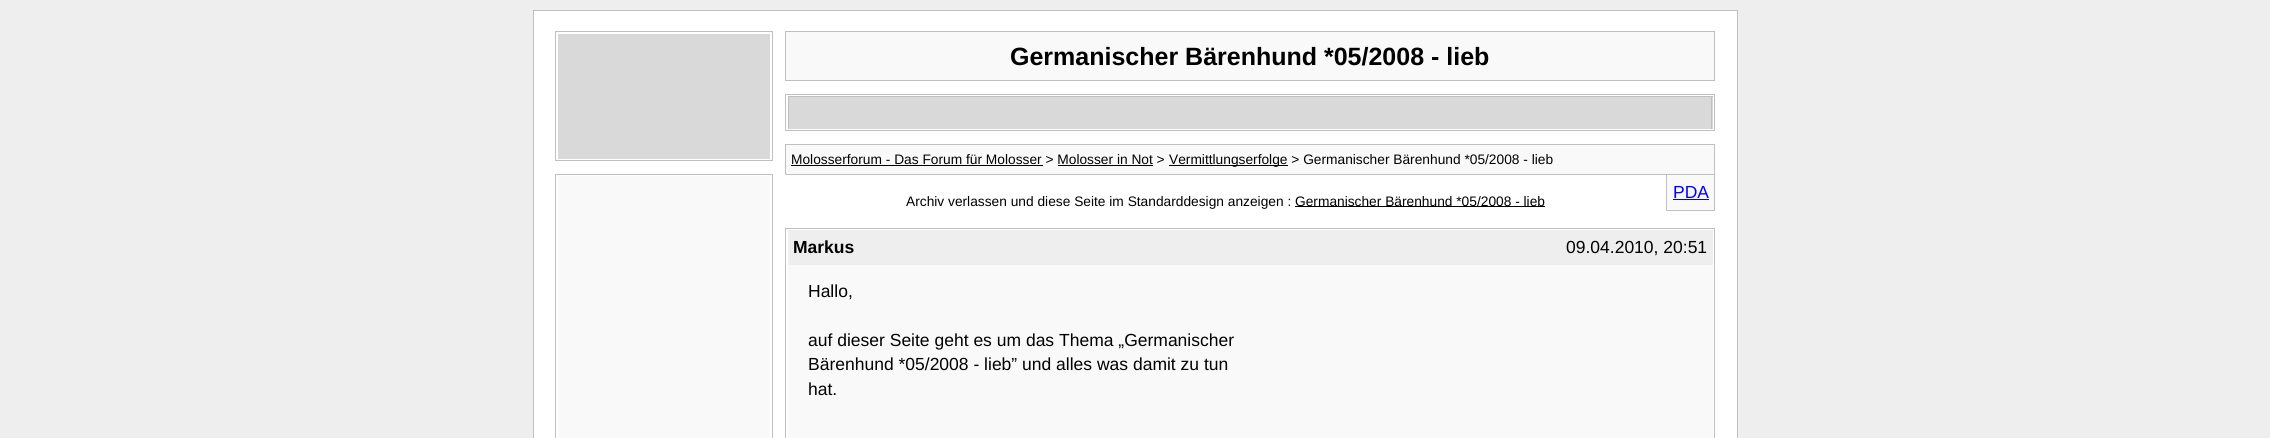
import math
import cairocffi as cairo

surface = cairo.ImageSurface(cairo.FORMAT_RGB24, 2270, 438)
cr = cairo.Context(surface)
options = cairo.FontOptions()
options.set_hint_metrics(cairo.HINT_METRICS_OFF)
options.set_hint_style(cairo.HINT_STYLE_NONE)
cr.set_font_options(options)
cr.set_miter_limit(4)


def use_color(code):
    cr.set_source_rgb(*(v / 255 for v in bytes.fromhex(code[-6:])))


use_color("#eeeeee")
cr.paint()
use_color("#ffffff")
cr.rectangle(533.5, 10.5, 1204, 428)
cr.fill_preserve()
use_color("#c0c0c0")
cr.set_line_width(1)
cr.stroke()
cr.rectangle(555.5, 31.5, 217, 129)
cr.stroke()
use_color("#d9d9d9")
cr.rectangle(558, 34, 212, 125)
cr.fill()
cr.rectangle(555.5, 174.5, 217, 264)
use_color("#c0c0c0")
cr.stroke()
use_color("#f9f9f9")
cr.rectangle(558, 176, 212, 262)
cr.fill()
cr.rectangle(785.5, 31.5, 929, 49)
cr.fill_preserve()
use_color("#c0c0c0")
cr.stroke()
cr.select_font_face("Liberation Sans", cairo.FONT_SLANT_NORMAL, cairo.FONT_WEIGHT_BOLD)
cr.set_font_size(25)
use_color("#000000")
cr.move_to(1010, 65)
cr.show_text("Germanischer Bärenhund *05/2008 - lieb")
cr.rectangle(785.5, 94.5, 929, 36)
use_color("#c0c0c0")
cr.stroke()
use_color("#d9d9d9")
cr.rectangle(789, 97, 924, 32)
cr.fill()
use_color("#c0c0c0")
cr.rectangle(788, 96, 925, 1)
cr.fill()
cr.rectangle(1711, 96, 1, 33)
cr.fill()
cr.rectangle(788, 96, 1, 33)
cr.fill()
use_color("#f9f9f9")
cr.rectangle(785.5, 144.5, 929, 30)
cr.fill_preserve()
use_color("#c0c0c0")
cr.stroke()
cr.select_font_face("Liberation Sans")
cr.set_font_size(13.75)
use_color("#000000")
cr.move_to(791, 164)
cr.show_text("Molosserforum - Das Forum für Molosser > Molosser in Not >")
cr.rectangle(791, 165, 252, 1)
cr.fill()
cr.rectangle(1169, 165, 119, 1)
cr.fill()
cr.move_to(1169, 164)
cr.show_text("Vermittlungserfolge > Germanischer Bärenhund *05/2008 - lieb")
cr.rectangle(1058, 165, 95, 1)
cr.fill()
use_color("#f9f9f9")
cr.rectangle(1667, 175, 47, 35)
cr.fill()
use_color("#c0c0c0")
cr.rectangle(1714, 175, 1, 36)
cr.fill()
cr.rectangle(1666, 210, 49, 1)
cr.fill()
cr.rectangle(1666, 175, 1, 36)
cr.fill()
cr.set_font_size(17.5)
use_color("#0000ff")
cr.move_to(1673, 198)
cr.show_text("PDA")
cr.rectangle(1673, 199, 36, 1)
cr.fill()
cr.set_font_size(13.75)
use_color("#000000")
cr.move_to(906, 206)
cr.show_text("Archiv verlassen und diese Seite im Standarddesign anzeigen :")
cr.rectangle(1295, 206, 250, 1)
cr.fill()
cr.move_to(1295, 206)
cr.show_text("Germanischer Bärenhund *05/2008 - lieb")
cr.rectangle(785.5, 228.5, 929, 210)
use_color("#c0c0c0")
cr.stroke()
use_color("#eeeeee")
cr.rectangle(788, 230, 925, 35)
cr.fill()
cr.select_font_face("Liberation Sans", cairo.FONT_SLANT_NORMAL, cairo.FONT_WEIGHT_BOLD)
cr.set_font_size(17.5)
use_color("#000000")
cr.move_to(793, 253)
cr.show_text("Markus")
cr.select_font_face("Liberation Sans")
cr.move_to(1566, 253)
cr.show_text("09.04.2010, 20:51")
use_color("#f9f9f9")
cr.rectangle(788, 265, 925, 173)
cr.fill()
use_color("#000000")
cr.move_to(808, 297)
cr.show_text("Hallo,")
cr.move_to(808, 346)
cr.show_text("auf dieser Seite geht es um das Thema „Germanischer")
cr.move_to(808, 370)
cr.show_text("Bärenhund *05/2008 - lieb” und alles was damit zu tun")
cr.move_to(808, 395)
cr.show_text("hat.")
surface.write_to_png("result.png")
